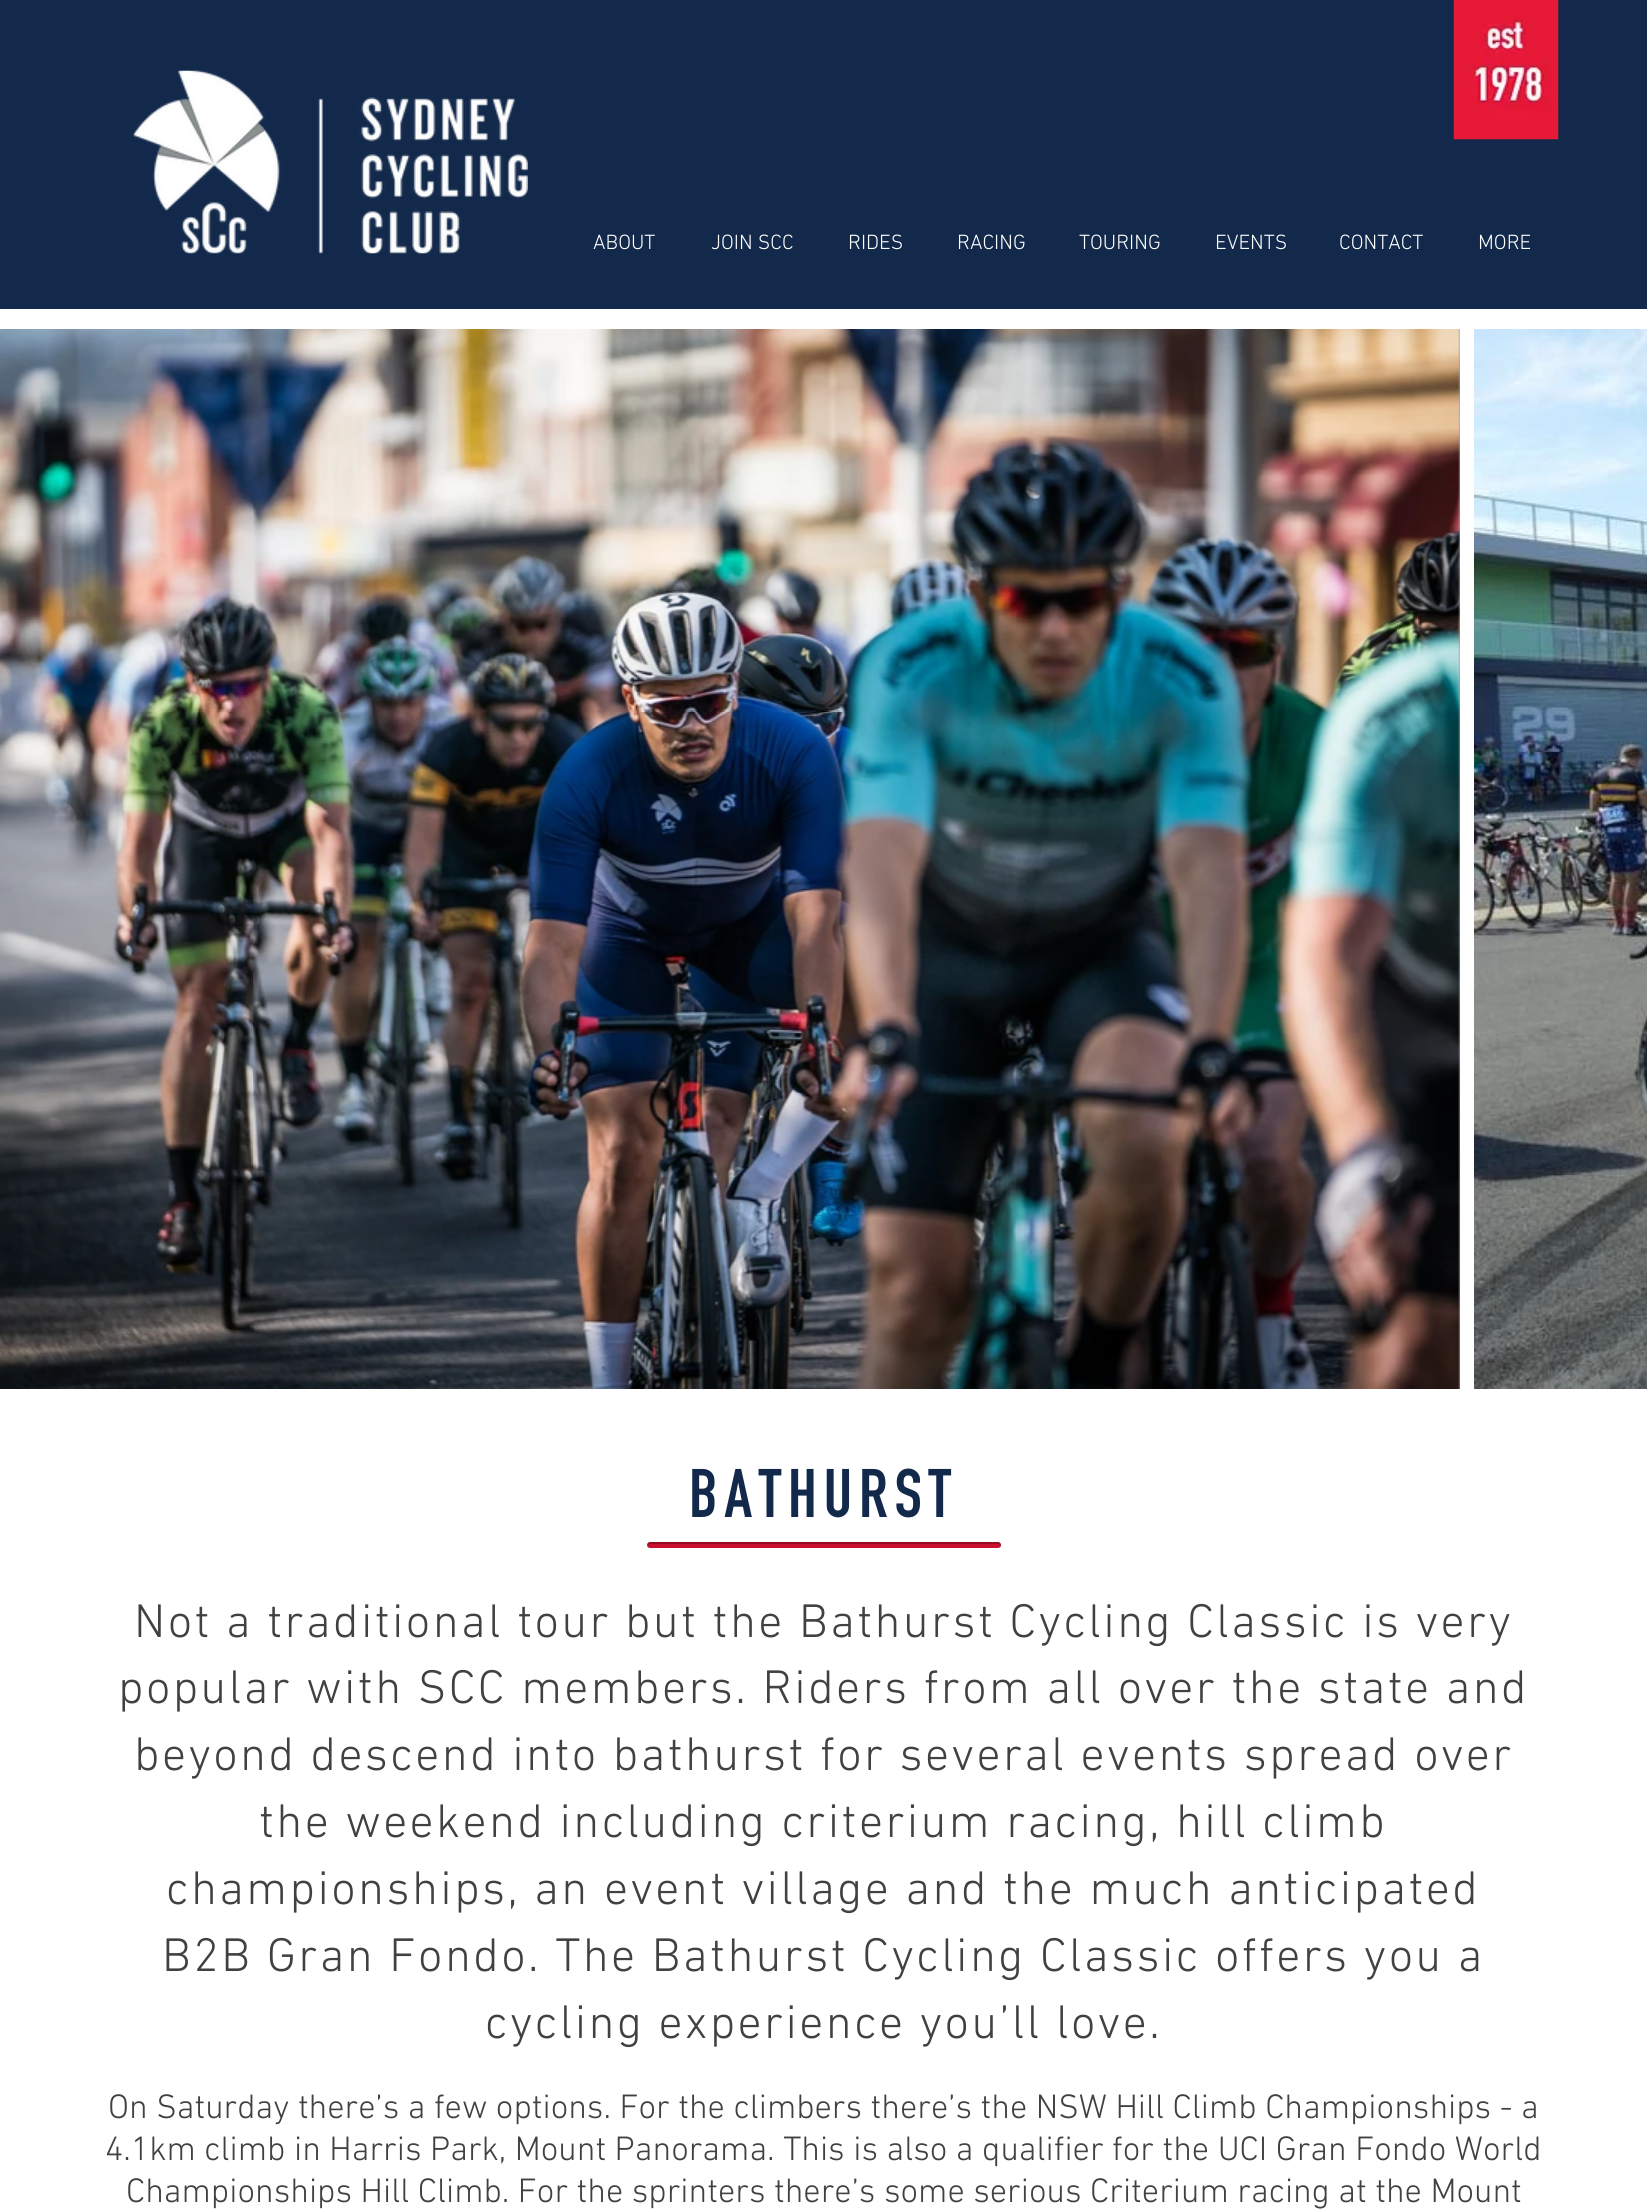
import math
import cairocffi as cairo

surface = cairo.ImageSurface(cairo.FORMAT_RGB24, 1647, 2211)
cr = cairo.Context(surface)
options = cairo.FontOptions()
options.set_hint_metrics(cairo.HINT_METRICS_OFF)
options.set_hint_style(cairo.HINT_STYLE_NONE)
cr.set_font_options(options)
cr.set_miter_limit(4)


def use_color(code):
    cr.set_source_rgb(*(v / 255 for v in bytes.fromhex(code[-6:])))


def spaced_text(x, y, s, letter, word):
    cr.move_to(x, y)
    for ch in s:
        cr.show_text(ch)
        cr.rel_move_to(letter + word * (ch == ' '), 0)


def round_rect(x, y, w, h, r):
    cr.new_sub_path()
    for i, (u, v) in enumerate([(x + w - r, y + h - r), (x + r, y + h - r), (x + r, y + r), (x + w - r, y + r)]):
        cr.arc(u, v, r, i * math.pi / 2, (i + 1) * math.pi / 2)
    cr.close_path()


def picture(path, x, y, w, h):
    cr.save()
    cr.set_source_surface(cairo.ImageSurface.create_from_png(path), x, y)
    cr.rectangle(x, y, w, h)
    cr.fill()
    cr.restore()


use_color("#ffffff")
cr.paint()
use_color("#13294b")
cr.rectangle(0, 0, 1647, 309)
cr.fill()
picture("img1.png", 133, 70, 395, 184)
picture("img2.png", 1453, 0, 106, 140)
cr.select_font_face("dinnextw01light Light")
cr.set_font_size(21)
use_color("#ffffff")
cr.move_to(593, 249)
cr.show_text("ABOUT")
cr.move_to(711, 249)
cr.show_text("JOIN SCC")
cr.move_to(848, 249)
cr.show_text("RIDES")
cr.move_to(957, 249)
cr.show_text("RACING")
cr.move_to(1079, 249)
cr.show_text("TOURING")
cr.move_to(1215, 249)
cr.show_text("EVENTS")
cr.move_to(1339, 249)
cr.show_text("CONTACT")
cr.move_to(1478, 249)
cr.show_text("MORE")
use_color("#9e9e9e")
cr.rectangle(1458, 329, 2, 1060)
cr.fill()
picture("img3.png", 0, 329, 1460, 1060)
picture("img4.png", 1474, 329, 173, 1060)
cr.select_font_face("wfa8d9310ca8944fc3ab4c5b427")
cr.set_font_size(67.5)
use_color("#13294b")
spaced_text(689, 1517, "BATHURST", 6.75, 0)
use_color("#c8102e")
round_rect(647, 1542, 354, 6, 3)
cr.fill()
cr.set_source_rgba(0, 0, 0, 0.25)
cr.new_path()
cr.move_to(650, 1544)
cr.line_to(998, 1544)
cr.curve_to(1000, 1544, 1000, 1546, 1000, 1547)
cr.curve_to(1002, 1546, 1001, 1542, 998, 1542)
cr.line_to(650, 1542)
cr.line_to(648, 1543)
cr.line_to(647, 1545)
cr.close_path()
cr.fill()
cr.select_font_face("dinnextw01light Light")
cr.set_font_size(48)
use_color("#414141")
spaced_text(134, 1637, "Not a traditional tour but the Bathurst Cycling Classic is very", 2.4, 0)
spaced_text(118, 1703, "popular with SCC members. Riders from all over the state and", 2.4, 0)
spaced_text(134, 1770, "beyond descend into bathurst for several events spread over", 2.4, 0)
spaced_text(259, 1837, "the weekend including criterium racing, hill climb", 2.4, 0)
spaced_text(166, 1904, "championships, an event village and the much anticipated", 2.4, 0)
spaced_text(162, 1971, "B2B Gran Fondo. The Bathurst Cycling Classic offers you a", 2.4, 0)
spaced_text(485, 2038, "cycling experience you’ll love.", 2.4, 0)
cr.set_font_size(34.5)
cr.move_to(108, 2118)
cr.show_text("On Saturday there’s a few options. For the climbers there’s the NSW Hill Climb Championships - a")
cr.move_to(105, 2160)
cr.show_text("4.1km climb in Harris Park, Mount Panorama. This is also a qualifier for the UCI Gran Fondo World")
cr.move_to(126, 2202)
cr.show_text("Championships Hill Climb. For the sprinters there’s some serious Criterium racing at the Mount")
surface.write_to_png("result.png")
